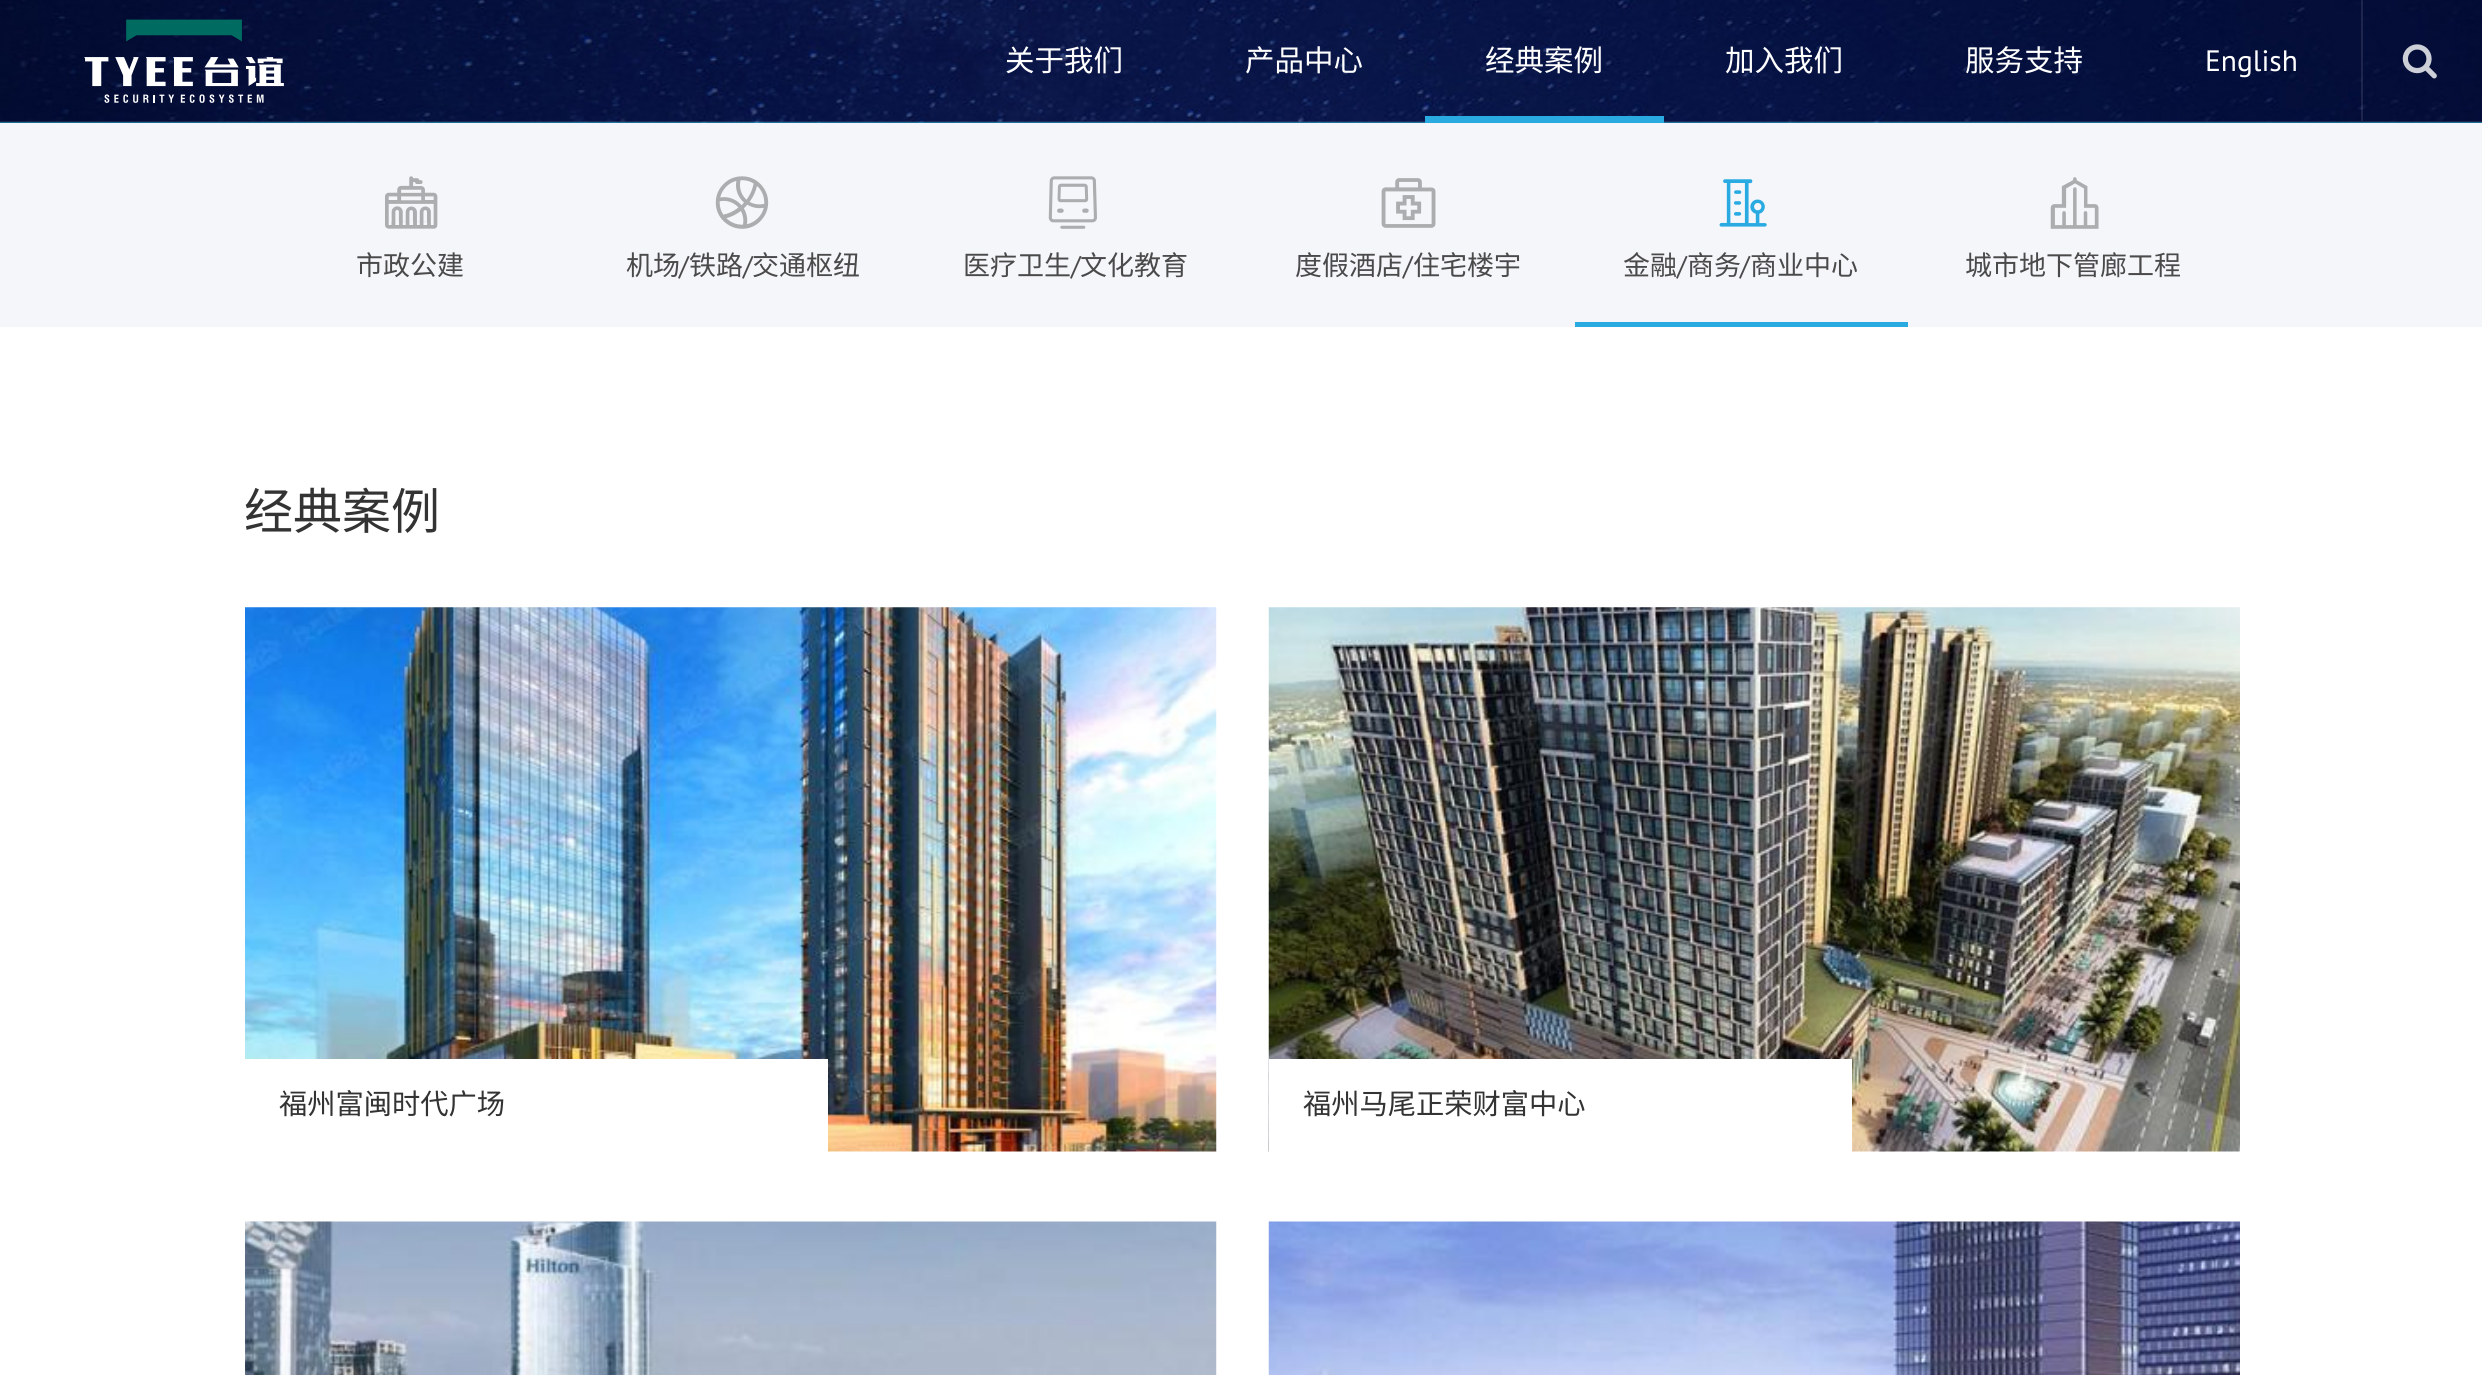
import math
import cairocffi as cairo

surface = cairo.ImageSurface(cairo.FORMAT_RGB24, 2482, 1375)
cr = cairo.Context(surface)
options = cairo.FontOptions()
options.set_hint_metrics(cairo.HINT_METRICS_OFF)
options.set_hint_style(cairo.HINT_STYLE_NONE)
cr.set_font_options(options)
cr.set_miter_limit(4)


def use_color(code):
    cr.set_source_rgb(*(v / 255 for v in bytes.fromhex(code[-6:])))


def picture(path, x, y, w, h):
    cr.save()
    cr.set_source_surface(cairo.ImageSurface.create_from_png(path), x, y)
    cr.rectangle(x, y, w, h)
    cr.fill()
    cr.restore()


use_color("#ffffff")
cr.paint()
use_color("#01acde")
cr.rectangle(0, 122, 2482, 1)
cr.fill()
picture("img3.png", 0, 0, 2482, 123)
cr.set_source_rgba(1, 1, 1, 0.1)
cr.rectangle(0, 121, 2482, 2)
cr.fill()
picture("img1.png", 84, 19, 200, 84)
cr.select_font_face("Noto Sans CJK SC")
cr.set_font_size(29.5)
use_color("#ffffff")
cr.move_to(1005, 71)
cr.show_text("关于我们")
cr.move_to(1245, 71)
cr.show_text("产品中心")
cr.move_to(1485, 71)
cr.show_text("经典案例")
use_color("#29abe2")
cr.rectangle(1425, 116, 239, 7)
cr.fill()
use_color("#ffffff")
cr.move_to(1725, 71)
cr.show_text("加入我们")
cr.move_to(1965, 71)
cr.show_text("服务支持")
cr.select_font_face("PT Sans")
cr.move_to(2205, 71)
cr.show_text("English")
cr.set_source_rgba(1, 1, 1, 0.1)
cr.rectangle(2361, 0, 2, 121)
cr.fill()
picture("img2.png", 2402, 44, 35, 35)
use_color("#f5f6fa")
cr.rectangle(0, 123, 2482, 204)
cr.fill()
picture("img4.png", 385, 176, 53, 53)
cr.select_font_face("Noto Sans CJK SC")
cr.set_font_size(27)
use_color("#4a4a4b")
cr.move_to(356, 275)
cr.show_text("市政公建")
picture("img5.png", 715, 176, 54, 53)
cr.move_to(626, 275)
cr.show_text("机场")
cr.select_font_face("PT Sans")
cr.move_to(679, 275)
cr.show_text("/")
cr.select_font_face("Noto Sans CJK SC")
cr.move_to(689, 275)
cr.show_text("铁路")
cr.select_font_face("PT Sans")
cr.move_to(743, 275)
cr.show_text("/")
cr.select_font_face("Noto Sans CJK SC")
cr.move_to(752, 275)
cr.show_text("交通枢纽")
picture("img6.png", 1048, 176, 49, 53)
cr.move_to(963, 275)
cr.show_text("医疗卫生")
cr.select_font_face("PT Sans")
cr.move_to(1071, 275)
cr.show_text("/")
cr.select_font_face("Noto Sans CJK SC")
cr.move_to(1080, 275)
cr.show_text("文化教育")
picture("img7.png", 1381, 178, 55, 50)
cr.move_to(1295, 275)
cr.show_text("度假酒店")
cr.select_font_face("PT Sans")
cr.move_to(1403, 275)
cr.show_text("/")
cr.select_font_face("Noto Sans CJK SC")
cr.move_to(1413, 275)
cr.show_text("住宅楼宇")
picture("img8.png", 1719, 179, 48, 48)
cr.move_to(1623, 275)
cr.show_text("金融")
cr.select_font_face("PT Sans")
cr.move_to(1677, 275)
cr.show_text("/")
cr.select_font_face("Noto Sans CJK SC")
cr.move_to(1687, 275)
cr.show_text("商务")
cr.select_font_face("PT Sans")
cr.move_to(1740, 275)
cr.show_text("/")
cr.select_font_face("Noto Sans CJK SC")
cr.move_to(1750, 275)
cr.show_text("商业中心")
use_color("#29abe2")
cr.rectangle(1575, 322, 333, 5)
cr.fill()
picture("img9.png", 2050, 177, 49, 52)
use_color("#4a4a4b")
cr.move_to(1965, 275)
cr.show_text("城市地下管廊工程")
cr.set_font_size(49)
use_color("#333333")
cr.move_to(244, 529)
cr.show_text("经典案例")
picture("img10.png", 245, 607, 972, 545)
use_color("#ffffff")
cr.rectangle(245, 1059, 583, 93)
cr.fill()
cr.set_font_size(28.25)
use_color("#333333")
cr.move_to(279, 1114)
cr.show_text("福州富闽时代广场")
picture("img11.png", 1268, 607, 972, 545)
use_color("#ffffff")
cr.rectangle(1269, 1059, 583, 93)
cr.fill()
use_color("#333333")
cr.move_to(1303, 1114)
cr.show_text("福州马尾正荣财富中心")
picture("img12.png", 245, 1221, 972, 154)
picture("img13.png", 1268, 1221, 972, 154)
surface.write_to_png("result.png")
